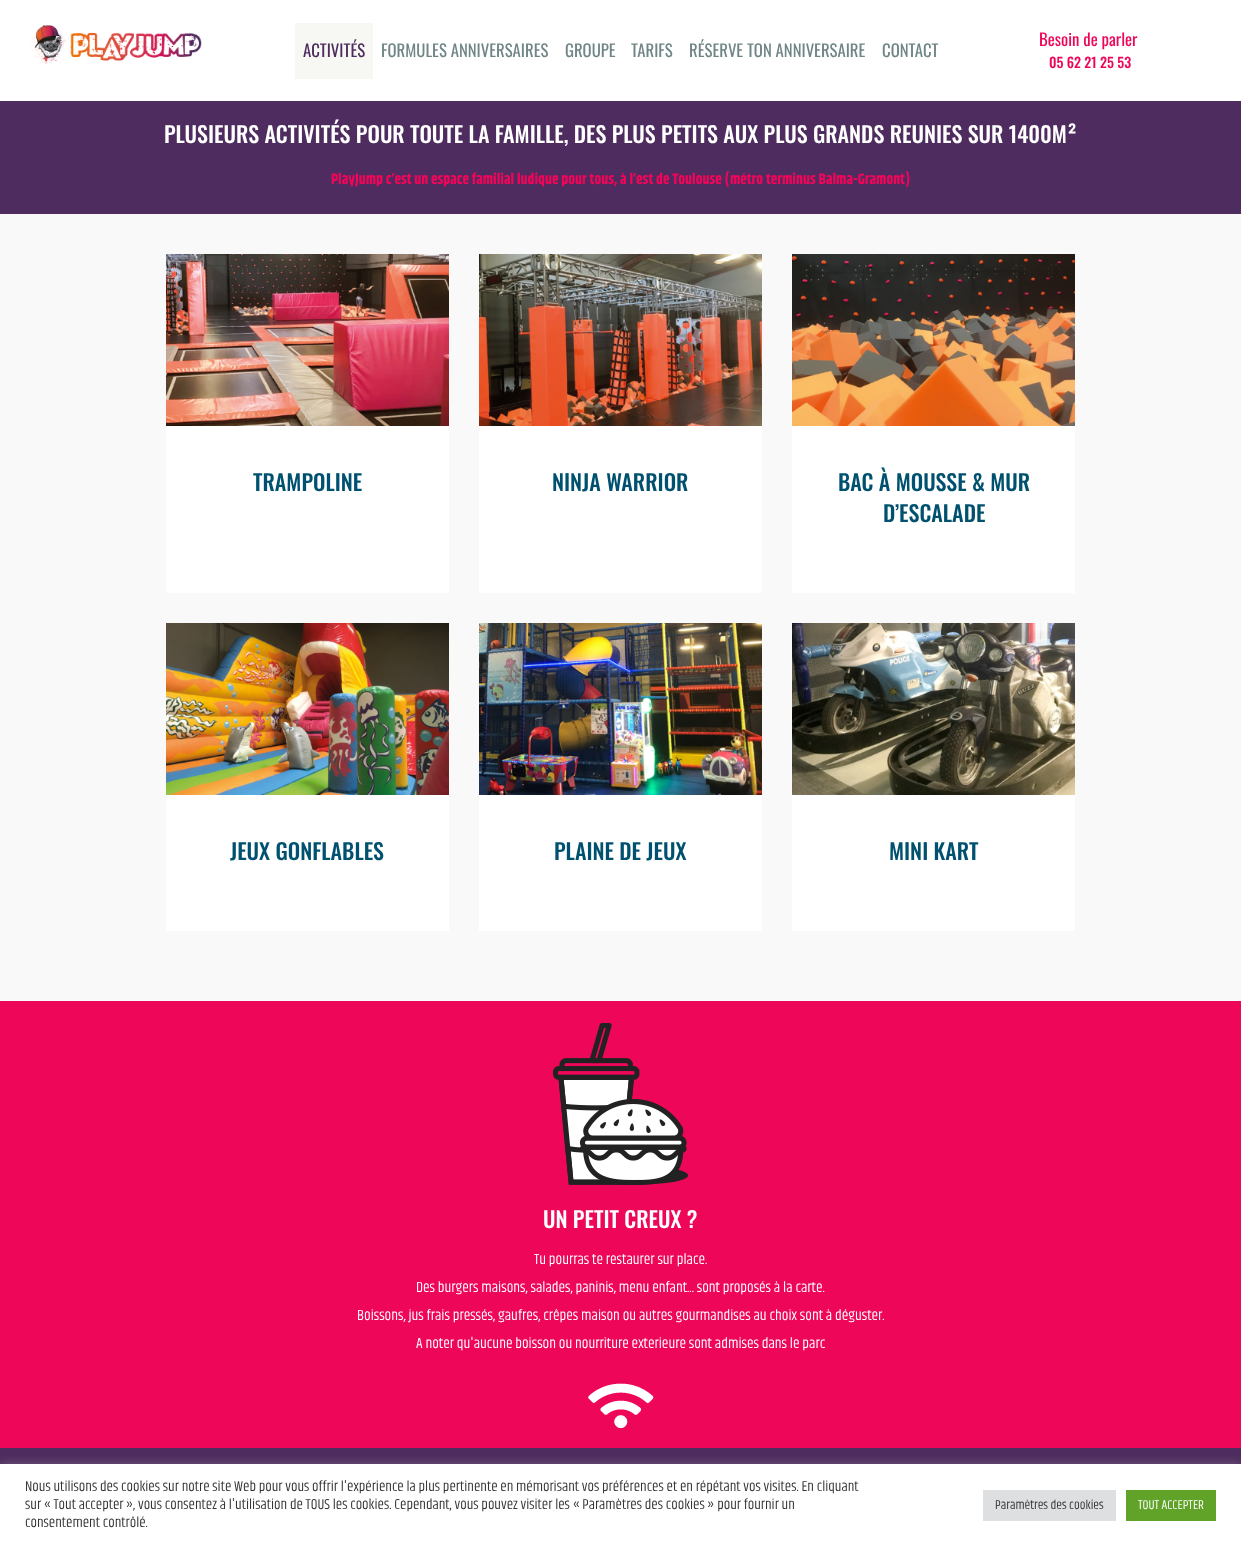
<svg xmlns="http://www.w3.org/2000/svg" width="1241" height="1546">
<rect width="100%" height="100%" fill="#fff"/>
<image x="30" y="25" width="172" height="39" href="media/1.png"/>
<rect x="295" y="23" width="78" height="56" fill="#f7f7f3"/>
<text x="303" y="57" style="font-family:Oswald;font-size:16.75px;fill:#4e2c5f">ACTIVITÉS</text>
<text x="381" y="57" style="font-family:Oswald;font-size:16.75px;fill:#708586">FORMULES ANNIVERSAIRES</text>
<text x="565" y="57" style="font-family:Oswald;font-size:16.75px;fill:#708586">GROUPE</text>
<text x="631" y="57" style="font-family:Oswald;font-size:16.75px;fill:#708586">TARIFS</text>
<text x="689" y="57" style="font-family:Oswald;font-size:16.75px;fill:#708586">RÉSERVE TON ANNIVERSAIRE</text>
<text x="882" y="57" style="font-family:Oswald;font-size:16.75px;fill:#708586">CONTACT</text>
<text x="1039" y="46" style="font-family:Oswald;font-size:16.75px;fill:#ee0659">Besoin de parler</text>
<text x="1049" y="68" style="font-family:Oswald;font-size:14px;font-weight:500;fill:#ee0659">05 62 21 25 53</text>
<rect y="101" width="1241" height="113" fill="#4e2c5f"/>
<text x="164" y="143" style="font-family:Oswald;font-size:22.05px;font-weight:500;fill:#fff">PLUSIEURS ACTIVITÉS POUR TOUTE LA FAMILLE, DES PLUS PETITS AUX PLUS GRANDS REUNIES SUR 1400M²</text>
<text x="331" y="184" style="font-family:Khand;font-size:15px;font-weight:bold;fill:#ee0659">PlayJump c’est un espace familial ludique pour tous, à l’est de Toulouse (métro terminus Balma-Gramont)</text>
<rect y="214" width="1241" height="787" fill="#f9f9f9"/>
<rect x="166" y="426" width="283" height="167" fill="#fff"/>
<image x="166" y="254" width="283" height="172" href="media/2.png"/>
<text x="253" y="491" style="font-family:Oswald;font-size:22.05px;font-weight:500;fill:#00516f">TRAMPOLINE</text>
<rect x="479" y="426" width="283" height="167" fill="#fff"/>
<image x="479" y="254" width="283" height="172" href="media/3.png"/>
<text x="552" y="491" style="font-family:Oswald;font-size:22.05px;font-weight:500;fill:#00516f">NINJA WARRIOR</text>
<rect x="792" y="426" width="283" height="167" fill="#fff"/>
<image x="792" y="254" width="283" height="172" href="media/4.png"/>
<text x="838" y="491" style="font-family:Oswald;font-size:22.05px;font-weight:500;fill:#00516f">BAC À MOUSSE &amp; MUR</text>
<text x="883" y="522" style="font-family:Oswald;font-size:22.05px;font-weight:500;fill:#00516f">D’ESCALADE</text>
<rect x="166" y="795" width="283" height="136" fill="#fff"/>
<image x="166" y="623" width="283" height="172" href="media/5.png"/>
<text x="230" y="860" style="font-family:Oswald;font-size:22.05px;font-weight:500;fill:#00516f">JEUX GONFLABLES</text>
<rect x="479" y="795" width="283" height="136" fill="#fff"/>
<image x="479" y="623" width="283" height="172" href="media/6.png"/>
<text x="554" y="860" style="font-family:Oswald;font-size:22.05px;font-weight:500;fill:#00516f">PLAINE DE JEUX</text>
<rect x="792" y="795" width="283" height="136" fill="#fff"/>
<image x="792" y="623" width="283" height="172" href="media/7.png"/>
<text x="889" y="860" style="font-family:Oswald;font-size:22.05px;font-weight:500;fill:#00516f">MINI KART</text>
<rect y="1001" width="1241" height="447" fill="#ee0659"/>
<image x="553" y="1023" width="135" height="162" href="media/8.png"/>
<text x="543" y="1228" style="font-family:Oswald;font-size:22.05px;font-weight:500;fill:#fff">UN PETIT CREUX ?</text>
<text x="534" y="1264" style="font-family:Khand;font-size:15px;fill:#fff">Tu pourras te restaurer sur place.</text>
<text x="416" y="1292" style="font-family:Khand;font-size:15px;fill:#fff">Des burgers maisons, salades, paninis, menu enfant... sont proposés à la carte.</text>
<text x="357" y="1320" style="font-family:Khand;font-size:15px;fill:#fff">Boissons, jus frais pressés, gaufres, crêpes maison ou autres gourmandises au choix sont à déguster.</text>
<text x="416" y="1348" style="font-family:Khand;font-size:15px;fill:#fff">A noter qu'aucune boisson ou nourriture exterieure sont admises dans le parc</text>
<image x="588" y="1383" width="66" height="45" href="media/9.png"/>
<rect y="1448" width="1241" height="16" fill="#4e2c5f"/>
<rect y="1463" width="1241" height="82" fill="#acabab4d" filter="blur(5px)"/>
<rect y="1464" width="1241" height="82" fill="#fff"/>
<text x="25" y="1491" style="font-family:Khand;font-size:14.67px;fill:#333">Nous utilisons des cookies sur notre site Web pour vous offrir l'expérience la plus pertinente en mémorisant vos préférences et en répétant vos visites. En cliquant</text>
<text x="25" y="1509" style="font-family:Khand;font-size:14.67px;fill:#333">sur « Tout accepter », vous consentez à l'utilisation de TOUS les cookies. Cependant, vous pouvez visiter les « Paramètres des cookies » pour fournir un</text>
<text x="25" y="1527" style="font-family:Khand;font-size:14.67px;fill:#333">consentement contrôlé.</text>
<rect x="983" y="1490" width="133" height="31" fill="#dedfe0"/>
<text x="995" y="1509" style="font-family:Khand;font-size:13px;fill:#333">Paramètres des cookies</text>
<rect x="1126" y="1490" width="90" height="31" fill="#61a229"/>
<text x="1138" y="1509" style="font-family:Khand;font-size:13px;fill:#fff">TOUT ACCEPTER</text>
</svg>
